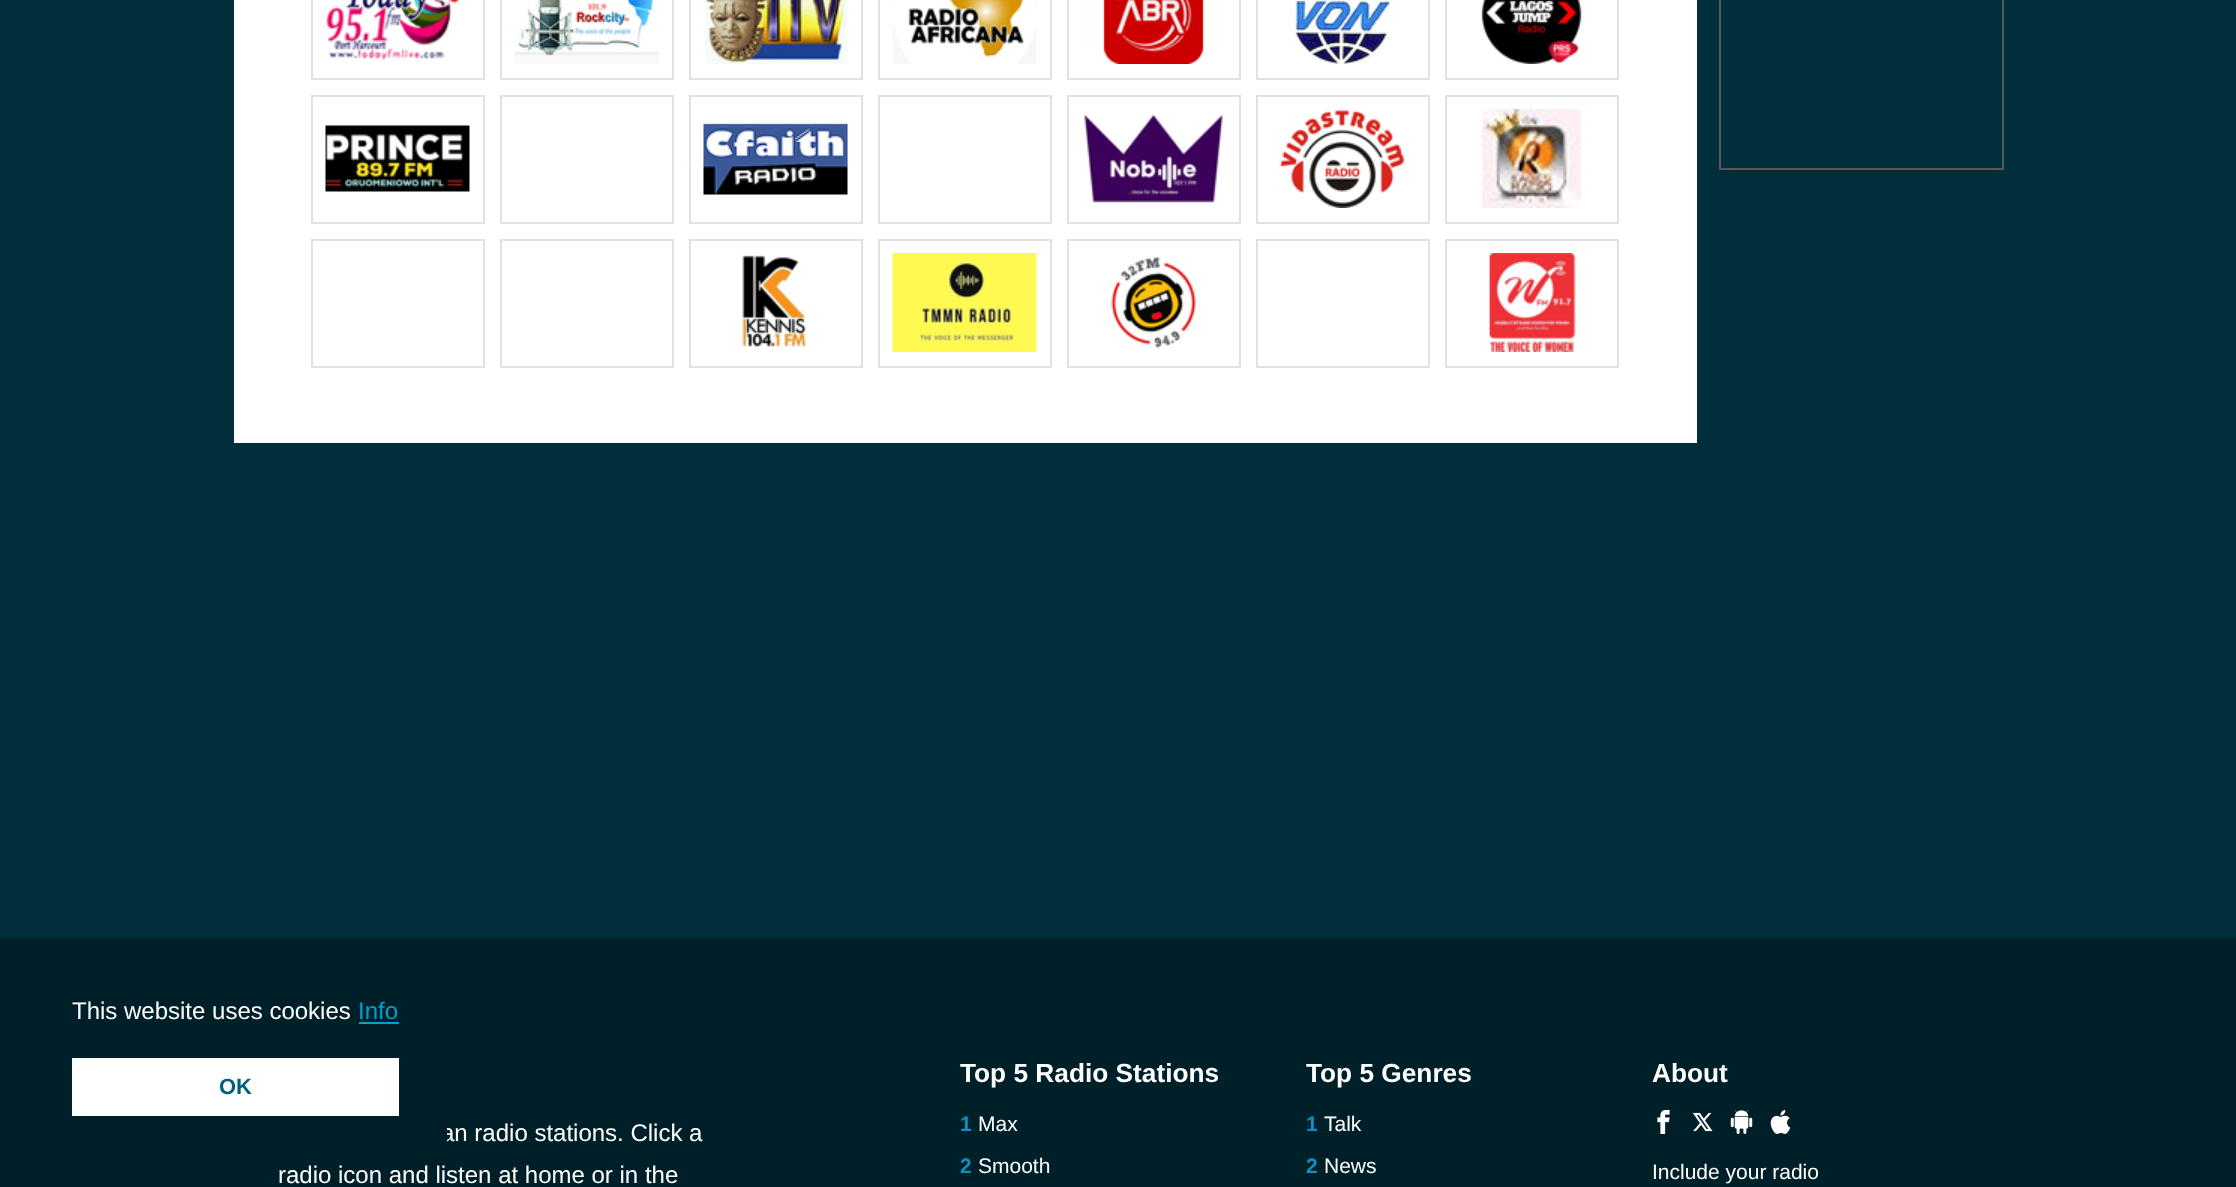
<svg xmlns="http://www.w3.org/2000/svg" width="2236" height="1187">
<rect width="100%" height="100%" fill="#002e3b"/>
<rect y="938" width="2236" height="249" fill="#002029"/>
<text x="441" y="1141" style="font-family:Liberation Sans;font-size:24px;fill:#fff">an radio stations. Click a</text>
<rect x="442" y="1128" width="5" height="14" fill="#002029"/>
<text x="72" y="1019" style="font-family:Liberation Sans;font-size:24px;fill:#fff">This website uses cookies</text>
<text x="358" y="1019" style="font-family:Liberation Sans;font-size:24px;fill:#00a0ce">Info</text>
<rect x="359" y="1022" width="40" height="2" fill="#00a0ce"/>
<rect x="72" y="1058" width="327" height="58" fill="#fff"/>
<text x="219" y="1094" style="font-family:Liberation Sans;font-size:22px;font-weight:bold;fill:#005f79">OK</text>
<rect x="234" width="1463" height="443" fill="#fff"/>
<rect x="312" y="-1" width="172" height="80" fill="none" stroke="#e1e1e1" stroke-width="2"/>
<image x="325" y="0" width="135" height="61" href="media/1.png"/>
<rect x="501" y="-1" width="172" height="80" fill="none" stroke="#e1e1e1" stroke-width="2"/>
<image x="514" y="0" width="145" height="64" href="media/2.png"/>
<rect x="690" y="-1" width="172" height="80" fill="none" stroke="#e1e1e1" stroke-width="2"/>
<image x="705" y="0" width="143" height="64" href="media/3.png"/>
<rect x="879" y="-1" width="172" height="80" fill="none" stroke="#e1e1e1" stroke-width="2"/>
<image x="892" y="0" width="145" height="64" href="media/4.png"/>
<rect x="1068" y="-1" width="172" height="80" fill="none" stroke="#e1e1e1" stroke-width="2"/>
<image x="1103" y="0" width="101" height="64" href="media/5.png"/>
<rect x="1257" y="-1" width="172" height="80" fill="none" stroke="#e1e1e1" stroke-width="2"/>
<image x="1290" y="0" width="100" height="64" href="media/6.png"/>
<rect x="1446" y="-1" width="172" height="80" fill="none" stroke="#e1e1e1" stroke-width="2"/>
<image x="1481" y="0" width="101" height="64" href="media/7.png"/>
<rect x="312" y="96" width="172" height="127" fill="none" stroke="#e1e1e1" stroke-width="2"/>
<image x="325" y="125" width="145" height="67" href="media/8.png"/>
<rect x="501" y="96" width="172" height="127" fill="none" stroke="#e1e1e1" stroke-width="2"/>
<rect x="690" y="96" width="172" height="127" fill="none" stroke="#e1e1e1" stroke-width="2"/>
<image x="703" y="123" width="145" height="72" href="media/9.png"/>
<rect x="879" y="96" width="172" height="127" fill="none" stroke="#e1e1e1" stroke-width="2"/>
<rect x="1068" y="96" width="172" height="127" fill="none" stroke="#e1e1e1" stroke-width="2"/>
<image x="1084" y="114" width="139" height="89" href="media/10.png"/>
<rect x="1257" y="96" width="172" height="127" fill="none" stroke="#e1e1e1" stroke-width="2"/>
<image x="1279" y="110" width="126" height="98" href="media/11.png"/>
<rect x="1446" y="96" width="172" height="127" fill="none" stroke="#e1e1e1" stroke-width="2"/>
<image x="1482" y="109" width="99" height="99" href="media/12.png"/>
<rect x="312" y="240" width="172" height="127" fill="none" stroke="#e1e1e1" stroke-width="2"/>
<rect x="501" y="240" width="172" height="127" fill="none" stroke="#e1e1e1" stroke-width="2"/>
<rect x="690" y="240" width="172" height="127" fill="none" stroke="#e1e1e1" stroke-width="2"/>
<image x="742" y="255" width="65" height="93" href="media/13.png"/>
<rect x="879" y="240" width="172" height="127" fill="none" stroke="#e1e1e1" stroke-width="2"/>
<image x="892" y="253" width="145" height="99" href="media/14.png"/>
<rect x="1068" y="240" width="172" height="127" fill="none" stroke="#e1e1e1" stroke-width="2"/>
<image x="1111" y="257" width="85" height="91" href="media/15.png"/>
<rect x="1257" y="240" width="172" height="127" fill="none" stroke="#e1e1e1" stroke-width="2"/>
<rect x="1446" y="240" width="172" height="127" fill="none" stroke="#e1e1e1" stroke-width="2"/>
<image x="1489" y="253" width="87" height="99" href="media/16.png"/>
<rect x="1720" y="-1" width="283" height="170" fill="none" stroke="#585858" stroke-width="2"/>
<text x="278" y="1183" style="font-family:Liberation Sans;font-size:24px;fill:#fff">radio icon and listen at home or in the</text>
<text x="960" y="1082" style="font-family:Liberation Sans;font-size:26.25px;font-weight:bold;fill:#fff">Top 5 Radio Stations</text>
<text x="960" y="1131" style="font-family:Liberation Sans;font-size:21px;font-weight:bold;fill:#128fc2">1</text>
<text x="978" y="1131" style="font-family:Liberation Sans;font-size:21px;fill:#fff">Max</text>
<text x="960" y="1173" style="font-family:Liberation Sans;font-size:21px;font-weight:bold;fill:#128fc2">2</text>
<text x="978" y="1173" style="font-family:Liberation Sans;font-size:21px;fill:#fff">Smooth</text>
<text x="1306" y="1082" style="font-family:Liberation Sans;font-size:26.25px;font-weight:bold;fill:#fff">Top 5 Genres</text>
<text x="1306" y="1131" style="font-family:Liberation Sans;font-size:21px;font-weight:bold;fill:#128fc2">1</text>
<text x="1324" y="1131" style="font-family:Liberation Sans;font-size:21px;fill:#fff">Talk</text>
<text x="1306" y="1173" style="font-family:Liberation Sans;font-size:21px;font-weight:bold;fill:#128fc2">2</text>
<text x="1324" y="1173" style="font-family:Liberation Sans;font-size:21px;fill:#fff">News</text>
<text x="1652" y="1082" style="font-family:Liberation Sans;font-size:26.25px;font-weight:bold;fill:#fff">About</text>
<image x="1657" y="1110" width="13" height="24" href="media/17.png"/>
<image x="1692" y="1112" width="21" height="20" href="media/18.png"/>
<image x="1730" y="1110" width="23" height="24" href="media/19.png"/>
<image x="1770" y="1110" width="21" height="24" href="media/20.png"/>
<text x="1652" y="1179" style="font-family:Liberation Sans;font-size:21px;fill:#fff">Include your radio</text>
</svg>
